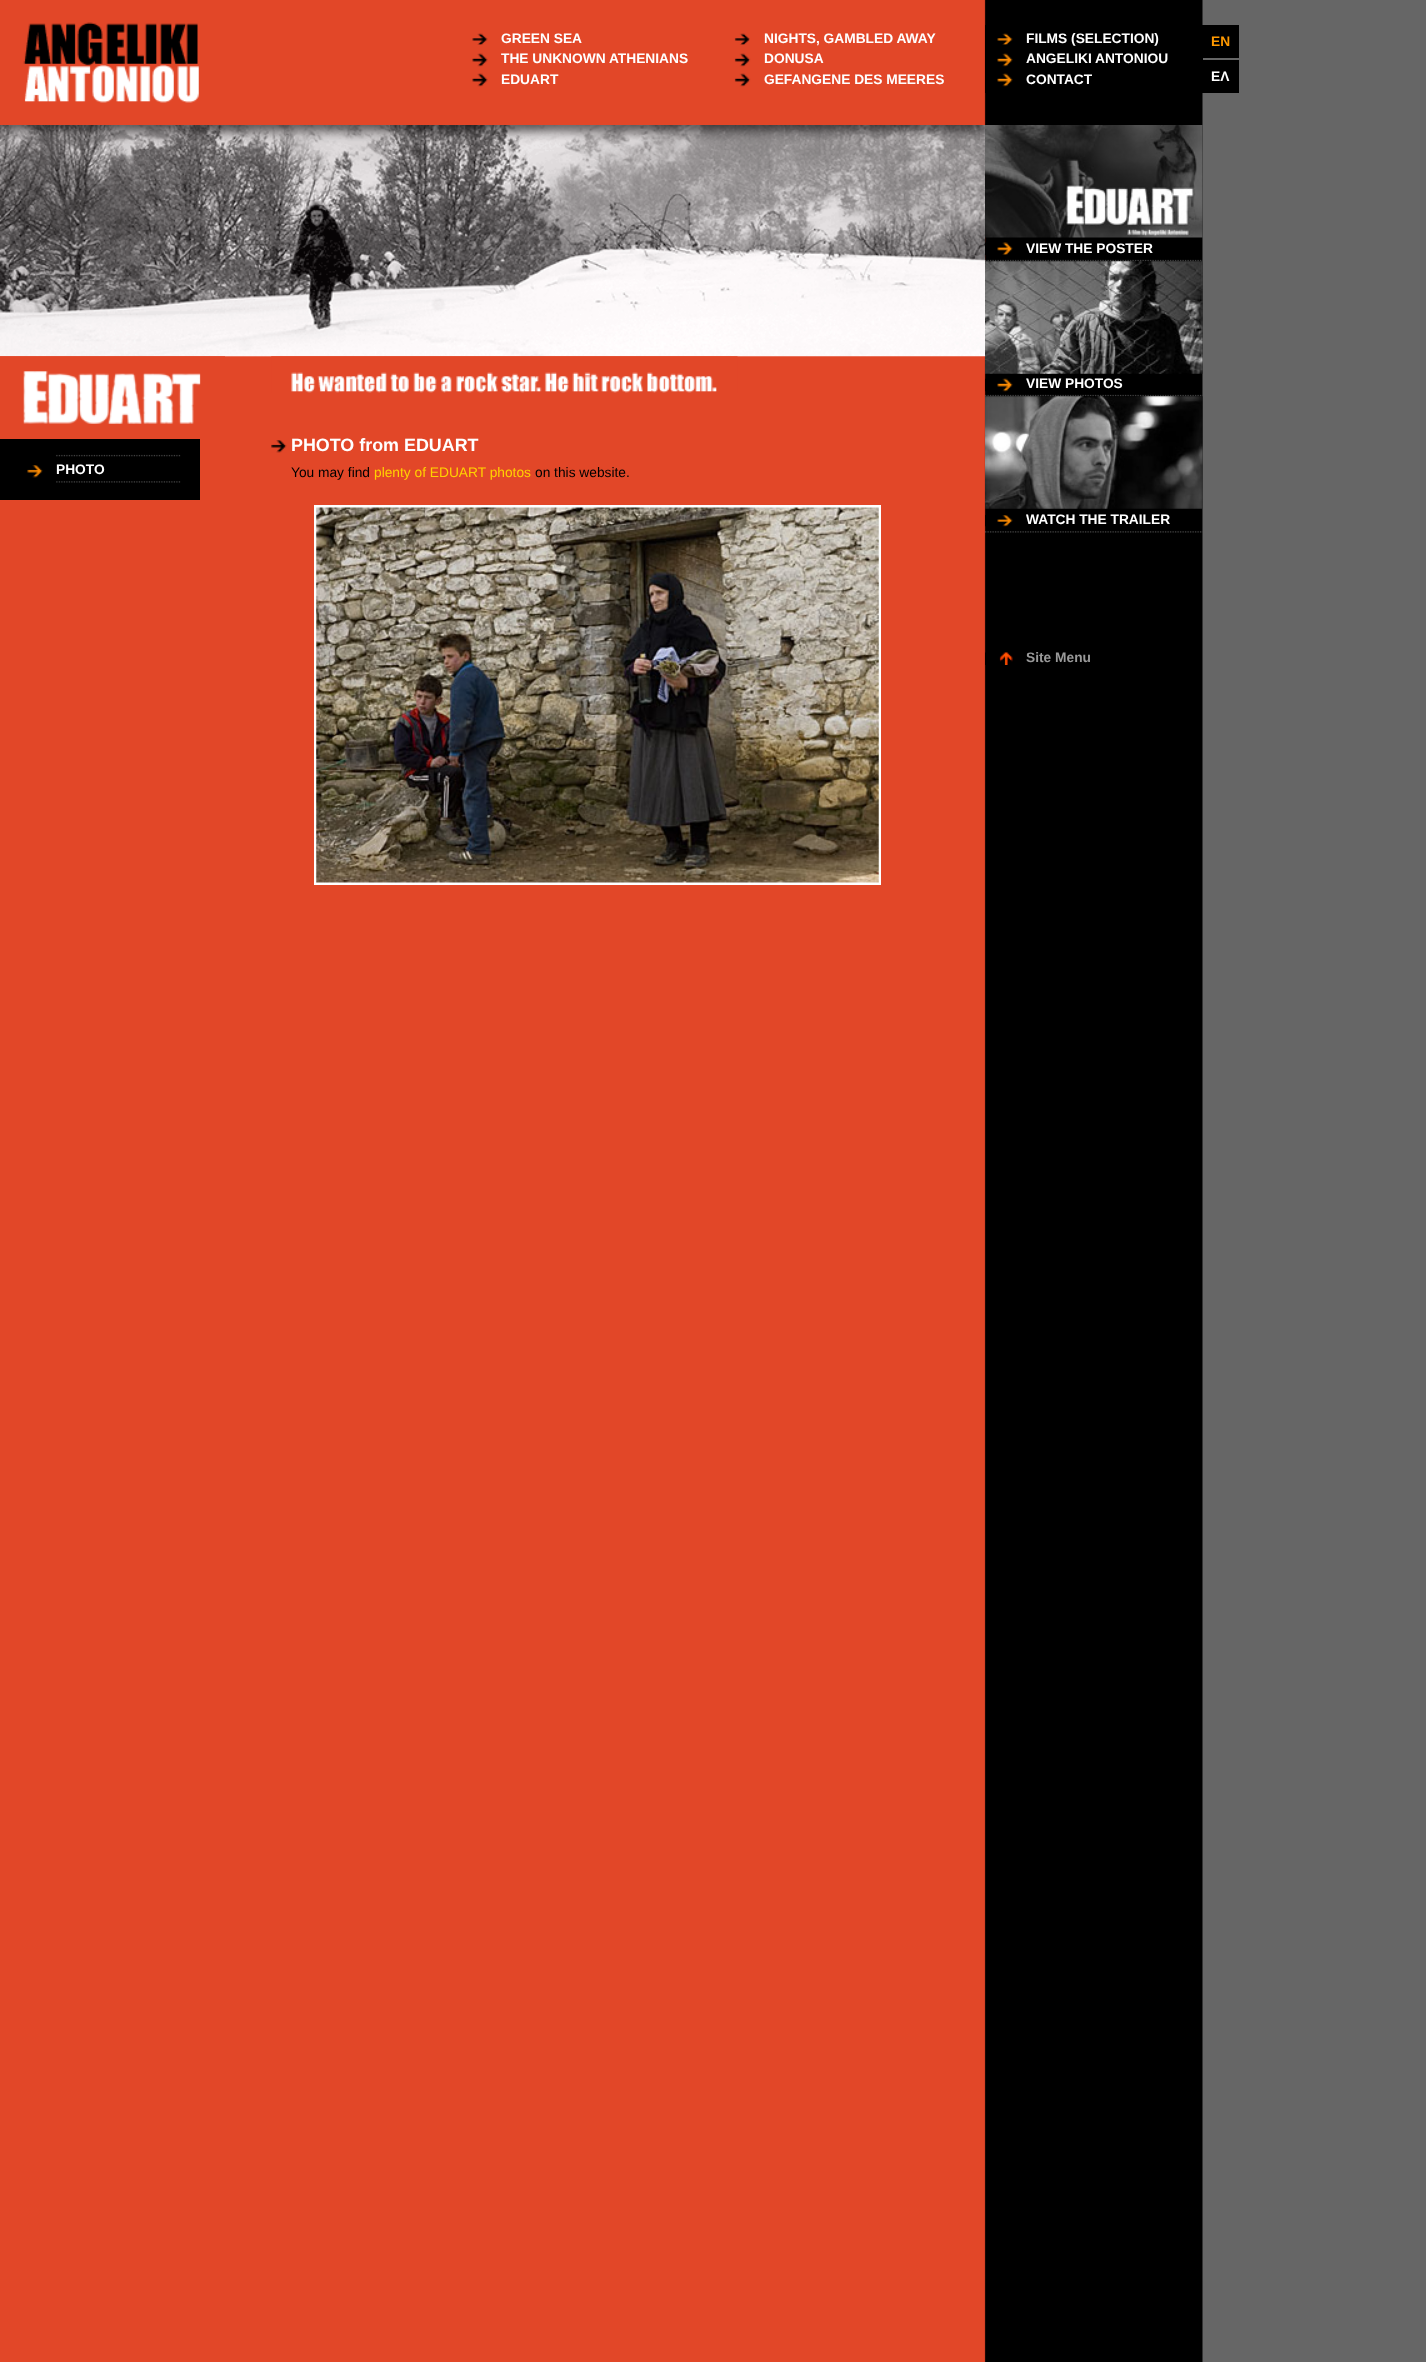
<svg xmlns="http://www.w3.org/2000/svg" width="1426" height="2362">
<rect width="100%" height="100%" fill="#666"/>
<image x="0" y="0" width="1203" height="2362" href="media/1.png"/>
<image x="23" y="22" width="176" height="81" href="media/2.png"/>
<image x="472" y="33" width="16" height="12" href="media/3.png"/>
<text x="501" y="43" style="font-family:Liberation Sans;font-size:13.75px;font-weight:bold;fill:#fff">GREEN SEA</text>
<image x="472" y="53" width="16" height="14" href="media/4.png"/>
<text x="501" y="63" style="font-family:Liberation Sans;font-size:13.75px;font-weight:bold;fill:#fff">THE UNKNOWN ATHENIANS</text>
<image x="472" y="73" width="16" height="14" href="media/4.png"/>
<text x="501" y="84" style="font-family:Liberation Sans;font-size:13.75px;font-weight:bold;fill:#fff">EDUART</text>
<image x="734" y="33" width="16" height="12" href="media/5.png"/>
<text x="764" y="43" style="font-family:Liberation Sans;font-size:13.75px;font-weight:bold;fill:#fff">NIGHTS, GAMBLED AWAY</text>
<image x="734" y="53" width="17" height="14" href="media/6.png"/>
<text x="764" y="63" style="font-family:Liberation Sans;font-size:13.75px;font-weight:bold;fill:#fff">DONUSA</text>
<image x="734" y="73" width="17" height="14" href="media/6.png"/>
<text x="764" y="84" style="font-family:Liberation Sans;font-size:13.75px;font-weight:bold;fill:#fff">GEFANGENE DES MEERES</text>
<rect x="985" y="25" width="218" height="68" fill="#000"/>
<image x="997" y="33" width="16" height="12" href="media/7.png"/>
<text x="1026" y="43" style="font-family:Liberation Sans;font-size:13.75px;font-weight:bold;fill:#fff">FILMS (SELECTION)</text>
<image x="997" y="53" width="16" height="14" href="media/8.png"/>
<text x="1026" y="63" style="font-family:Liberation Sans;font-size:13.75px;font-weight:bold;fill:#fff">ANGELIKI ANTONIOU</text>
<image x="997" y="73" width="16" height="14" href="media/8.png"/>
<text x="1026" y="84" style="font-family:Liberation Sans;font-size:13.75px;font-weight:bold;fill:#fff">CONTACT</text>
<rect x="1203" y="25" width="36" height="33" fill="#000"/>
<text x="1211" y="46" style="font-family:Liberation Sans;font-size:13.75px;font-weight:bold;fill:#f90">EN</text>
<rect x="1203" y="60" width="36" height="33" fill="#000"/>
<text x="1211" y="81" style="font-family:Liberation Sans;font-size:13.75px;font-weight:bold;fill:#fff">ΕΛ</text>
<image x="985" y="259" width="218" height="3" href="media/9.png"/>
<image x="985" y="125" width="218" height="113" href="media/10.png"/>
<image x="985" y="242" width="28" height="13" href="media/11.png"/>
<text x="1026" y="253" style="font-family:Liberation Sans;font-size:13.75px;font-weight:bold;fill:#fff">VIEW THE POSTER</text>
<image x="985" y="394" width="218" height="3" href="media/9.png"/>
<image x="985" y="261" width="218" height="113" href="media/12.png"/>
<image x="985" y="378" width="28" height="14" href="media/13.png"/>
<text x="1026" y="388" style="font-family:Liberation Sans;font-size:13.75px;font-weight:bold;fill:#fff">VIEW PHOTOS</text>
<image x="985" y="531" width="218" height="2" href="media/14.png"/>
<image x="985" y="396" width="218" height="113" href="media/15.png"/>
<image x="985" y="515" width="28" height="12" href="media/16.png"/>
<text x="1026" y="524" style="font-family:Liberation Sans;font-size:13.75px;font-weight:bold;fill:#fff">WATCH THE TRAILER</text>
<image x="0" y="125" width="985" height="232" href="media/17.png"/>
<image x="0" y="356" width="225" height="68" href="media/18.png"/>
<rect y="439" width="200" height="61" fill="#000"/>
<image x="56" y="454" width="125" height="3" href="media/19.png"/>
<image x="56" y="481" width="125" height="2" href="media/20.png"/>
<image x="27" y="465" width="16" height="13" href="media/21.png"/>
<text x="56" y="474" style="font-family:Liberation Sans;font-size:13.75px;font-weight:bold;fill:#fff">PHOTO</text>
<image x="271" y="356" width="467" height="37" href="media/22.png"/>
<image x="271" y="440" width="16" height="13" href="media/23.png"/>
<text x="291" y="451" style="font-family:Liberation Sans;font-size:17.9px;font-weight:bold;fill:#fff">PHOTO from EDUART</text>
<text x="291" y="477" style="font-family:Liberation Sans;font-size:13.75px;fill:#000">You may find</text>
<text x="374" y="477" style="font-family:Liberation Sans;font-size:13.75px;fill:#ffd200">plenty of EDUART photos</text>
<text x="535" y="477" style="font-family:Liberation Sans;font-size:13.75px;fill:#000">on this website.</text>
<rect x="315.5" y="506.5" width="564" height="377" fill="none" stroke="#fff" stroke-width="3"/>
<image x="316" y="507" width="563" height="376" href="media/24.png"/>
<image x="985" y="652" width="28" height="13" href="media/25.png"/>
<text x="1026" y="662" style="font-family:Liberation Sans;font-size:13.75px;font-weight:bold;fill:#999">Site Menu</text>
</svg>
